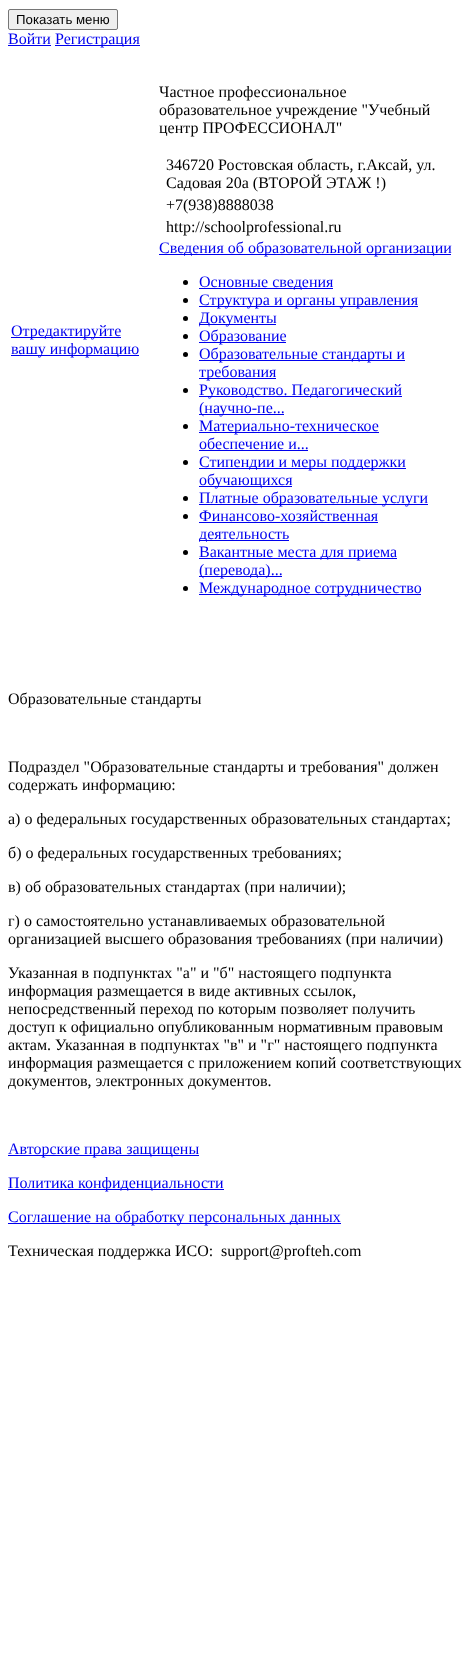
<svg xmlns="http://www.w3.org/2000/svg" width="472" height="1668">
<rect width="100%" height="100%" fill="#fff"/>
<rect x="8.5" y="9.5" width="109" height="20" rx="1.5" fill="#efefef" stroke="#767676"/>
<text x="16" y="24" style="font-family:Liberation Sans;font-size:13.25px;fill:#000">Показать меню</text>
<text x="8" y="44" style="font-family:Liberation Serif;font-size:16px;fill:#00e">Войти</text>
<rect x="8" y="45" width="43" height="1" fill="#00e"/>
<rect x="55" y="45" width="85" height="1" fill="#00e"/>
<text x="55" y="44" style="font-family:Liberation Serif;font-size:16px;fill:#00e">Регистрация</text>
<rect x="11" y="337" width="110" height="1" fill="#00e"/>
<text x="11" y="336" style="font-family:Liberation Serif;font-size:16px;fill:#00e">Отредактируйте</text>
<rect x="11" y="355" width="128" height="1" fill="#00e"/>
<text x="11" y="354" style="font-family:Liberation Serif;font-size:16px;fill:#00e">вашу информацию</text>
<text x="159" y="97" style="font-family:Liberation Serif;font-size:16px;fill:#000">Частное профессиональное</text>
<text x="159" y="115" style="font-family:Liberation Serif;font-size:16px;fill:#000">образовательное учреждение "Учебный</text>
<text x="159" y="133" style="font-family:Liberation Serif;font-size:16px;fill:#000">центр ПРОФЕССИОНАЛ"</text>
<text x="166" y="170" style="font-family:Liberation Serif;font-size:16px;fill:#000">346720 Ростовская область, г.Аксай, ул.</text>
<text x="166" y="188" style="font-family:Liberation Serif;font-size:16px;fill:#000">Садовая 20а (ВТОРОЙ ЭТАЖ !)</text>
<text x="166" y="210" style="font-family:Liberation Serif;font-size:16px;fill:#000">+7(938)8888038</text>
<text x="166" y="232" style="font-family:Liberation Serif;font-size:16px;fill:#000">http://schoolprofessional.ru</text>
<rect x="159" y="254" width="292" height="1" fill="#00e"/>
<text x="159" y="253" style="font-family:Liberation Serif;font-size:16px;fill:#00e">Сведения об образовательной организации</text>
<circle cx="185.5" cy="282.5" r="2.5" fill="#000"/>
<rect x="199" y="288" width="134" height="1" fill="#00e"/>
<text x="199" y="287" style="font-family:Liberation Serif;font-size:16px;fill:#00e">Основные сведения</text>
<circle cx="185.5" cy="300.5" r="2.5" fill="#000"/>
<rect x="199" y="306" width="219" height="1" fill="#00e"/>
<text x="199" y="305" style="font-family:Liberation Serif;font-size:16px;fill:#00e">Структура и органы управления</text>
<circle cx="185.5" cy="318.5" r="2.5" fill="#000"/>
<rect x="199" y="324" width="77" height="1" fill="#00e"/>
<text x="199" y="323" style="font-family:Liberation Serif;font-size:16px;fill:#00e">Документы</text>
<circle cx="185.5" cy="336.5" r="2.5" fill="#000"/>
<rect x="199" y="342" width="87" height="1" fill="#00e"/>
<text x="199" y="341" style="font-family:Liberation Serif;font-size:16px;fill:#00e">Образование</text>
<circle cx="185.5" cy="354.5" r="2.5" fill="#000"/>
<rect x="199" y="360" width="206" height="1" fill="#00e"/>
<text x="199" y="359" style="font-family:Liberation Serif;font-size:16px;fill:#00e">Образовательные стандарты и</text>
<rect x="199" y="378" width="77" height="1" fill="#00e"/>
<text x="199" y="377" style="font-family:Liberation Serif;font-size:16px;fill:#00e">требования</text>
<circle cx="185.5" cy="390.5" r="2.5" fill="#000"/>
<rect x="199" y="396" width="203" height="1" fill="#00e"/>
<text x="199" y="395" style="font-family:Liberation Serif;font-size:16px;fill:#00e">Руководство. Педагогический</text>
<rect x="199" y="414" width="85" height="1" fill="#00e"/>
<text x="199" y="413" style="font-family:Liberation Serif;font-size:16px;fill:#00e">(научно-пе...</text>
<circle cx="185.5" cy="426.5" r="2.5" fill="#000"/>
<rect x="199" y="432" width="180" height="1" fill="#00e"/>
<text x="199" y="431" style="font-family:Liberation Serif;font-size:16px;fill:#00e">Материально-техническое</text>
<text x="199" y="449" style="font-family:Liberation Serif;font-size:16px;fill:#00e">обеспечение и...</text>
<rect x="199" y="450" width="109" height="1" fill="#00e"/>
<circle cx="185.5" cy="462.5" r="2.5" fill="#000"/>
<rect x="199" y="468" width="207" height="1" fill="#00e"/>
<text x="199" y="467" style="font-family:Liberation Serif;font-size:16px;fill:#00e">Стипендии и меры поддержки</text>
<rect x="199" y="486" width="93" height="1" fill="#00e"/>
<text x="199" y="485" style="font-family:Liberation Serif;font-size:16px;fill:#00e">обучающихся</text>
<circle cx="185.5" cy="498.5" r="2.5" fill="#000"/>
<rect x="199" y="504" width="229" height="1" fill="#00e"/>
<text x="199" y="503" style="font-family:Liberation Serif;font-size:16px;fill:#00e">Платные образовательные услуги</text>
<circle cx="185.5" cy="516.5" r="2.5" fill="#000"/>
<text x="199" y="521" style="font-family:Liberation Serif;font-size:16px;fill:#00e">Финансово-хозяйственная</text>
<rect x="199" y="522" width="179" height="1" fill="#00e"/>
<rect x="199" y="540" width="90" height="1" fill="#00e"/>
<text x="199" y="539" style="font-family:Liberation Serif;font-size:16px;fill:#00e">деятельность</text>
<circle cx="185.5" cy="552.5" r="2.5" fill="#000"/>
<rect x="199" y="558" width="198" height="1" fill="#00e"/>
<text x="199" y="557" style="font-family:Liberation Serif;font-size:16px;fill:#00e">Вакантные места для приема</text>
<rect x="199" y="576" width="83" height="1" fill="#00e"/>
<text x="199" y="575" style="font-family:Liberation Serif;font-size:16px;fill:#00e">(перевода)...</text>
<circle cx="185.5" cy="588.5" r="2.5" fill="#000"/>
<rect x="199" y="594" width="222" height="1" fill="#00e"/>
<text x="199" y="593" style="font-family:Liberation Serif;font-size:16px;fill:#00e">Международное сотрудничество</text>
<text x="8" y="704" style="font-family:Liberation Serif;font-size:16px;fill:#000">Образовательные стандарты</text>
<text x="8" y="772" style="font-family:Liberation Serif;font-size:16px;fill:#000">Подраздел "Образовательные стандарты и требования" должен</text>
<text x="8" y="790" style="font-family:Liberation Serif;font-size:16px;fill:#000">содержать информацию:</text>
<text x="8" y="824" style="font-family:Liberation Serif;font-size:16px;fill:#000">а) о федеральных государственных образовательных стандартах;</text>
<text x="8" y="858" style="font-family:Liberation Serif;font-size:16px;fill:#000">б) о федеральных государственных требованиях;</text>
<text x="8" y="892" style="font-family:Liberation Serif;font-size:16px;fill:#000">в) об образовательных стандартах (при наличии);</text>
<text x="8" y="926" style="font-family:Liberation Serif;font-size:16px;fill:#000">г) о самостоятельно устанавливаемых образовательной</text>
<text x="8" y="944" style="font-family:Liberation Serif;font-size:16px;fill:#000">организацией высшего образования требованиях (при наличии)</text>
<text x="8" y="978" style="font-family:Liberation Serif;font-size:16px;fill:#000">Указанная в подпунктах "а" и "б" настоящего подпункта</text>
<text x="8" y="996" style="font-family:Liberation Serif;font-size:16px;fill:#000">информация размещается в виде активных ссылок,</text>
<text x="8" y="1014" style="font-family:Liberation Serif;font-size:16px;fill:#000">непосредственный переход по которым позволяет получить</text>
<text x="8" y="1032" style="font-family:Liberation Serif;font-size:16px;fill:#000">доступ к официально опубликованным нормативным правовым</text>
<text x="8" y="1050" style="font-family:Liberation Serif;font-size:16px;fill:#000">актам. Указанная в подпунктах "в" и "г" настоящего подпункта</text>
<text x="8" y="1068" style="font-family:Liberation Serif;font-size:16px;fill:#000">информация размещается с приложением копий соответствующих</text>
<text x="8" y="1086" style="font-family:Liberation Serif;font-size:16px;fill:#000">документов, электронных документов.</text>
<rect x="8" y="1155" width="191" height="1" fill="#00e"/>
<text x="8" y="1154" style="font-family:Liberation Serif;font-size:16px;fill:#00e">Авторские права защищены</text>
<rect x="8" y="1189" width="216" height="1" fill="#00e"/>
<text x="8" y="1188" style="font-family:Liberation Serif;font-size:16px;fill:#00e">Политика конфиденциальности</text>
<rect x="8" y="1223" width="333" height="1" fill="#00e"/>
<text x="8" y="1222" style="font-family:Liberation Serif;font-size:16px;fill:#00e">Соглашение на обработку персональных данных</text>
<text x="8" y="1256" style="font-family:Liberation Serif;font-size:16px;fill:#000">Техническая поддержка ИСО:</text>
<text x="221" y="1256" style="font-family:Liberation Serif;font-size:16px;fill:#000">support@profteh.com</text>
</svg>
